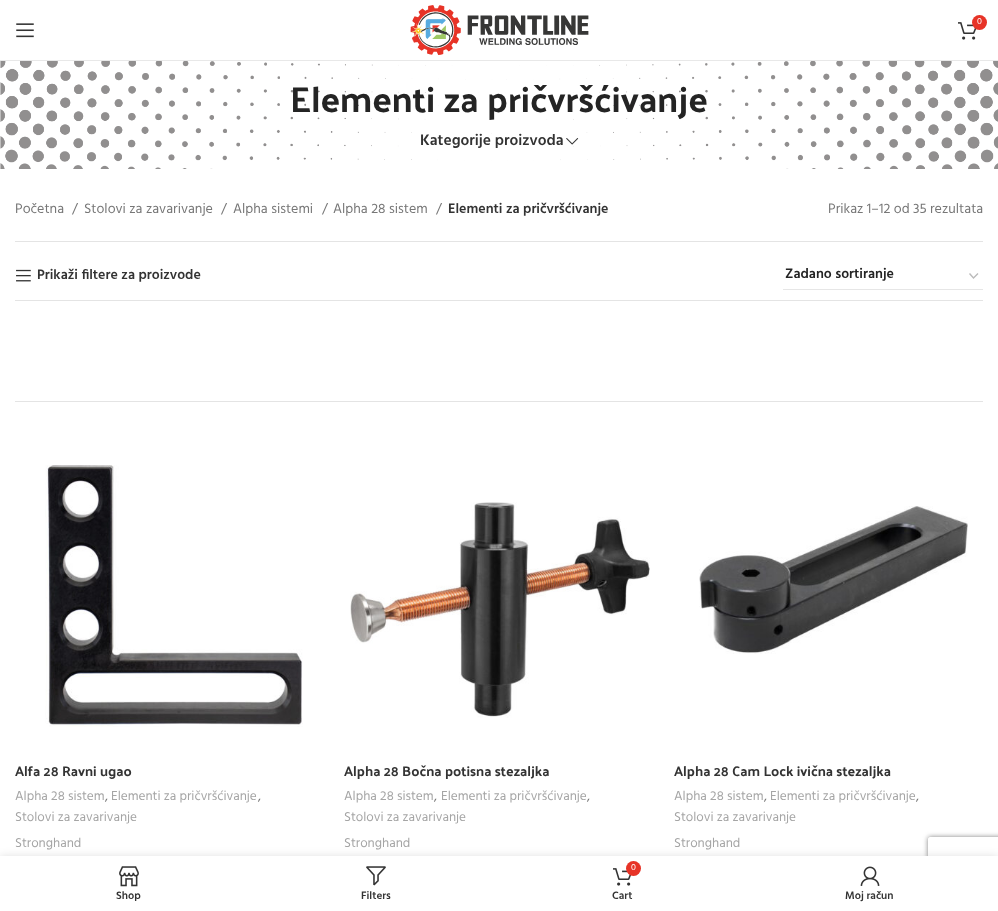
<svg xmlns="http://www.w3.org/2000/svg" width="998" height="911">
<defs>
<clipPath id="clip1"><path d="M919 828h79v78h-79zm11 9h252c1 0 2 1 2 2v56c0 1-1 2-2 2h-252c-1 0-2-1-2-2v-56c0-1 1-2 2-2z" clip-rule="evenodd"/></clipPath>
</defs>
<rect width="100%" height="100%" fill="#fff"/>
<rect y="60" width="998" height="1" fill="#e8e8e8"/>
<image x="410" y="5" width="179" height="50" href="media/1.png"/>
<image x="958" y="22" width="19" height="18" href="media/2.png"/>
<circle cx="979.5" cy="22.5" r="7.5" fill="#e73327"/>
<text x="977" y="24" style="font-family:Hind;font-size:9px;fill:#fff">0</text>
<image x="16" y="23" width="18" height="15" href="media/3.png"/>
<image x="0" y="61" width="998" height="108" href="media/4.png"/>
<text x="290" y="112" style="font-family:Palanquin Dark;font-size:36px;fill:#242424">Elementi za pričvršćivanje</text>
<text x="420" y="145" style="font-family:Hind;font-size:15.5px;font-weight:600;fill:#333">Kategorije proizvoda</text>
<image x="566" y="138" width="13" height="7" href="media/5.png"/>
<rect x="15" y="241" width="968" height="1" fill="#e4e4e4"/>
<text x="15" y="213" style="font-family:Hind;font-size:14px;fill:#777">Početna</text>
<text x="72" y="213" style="font-family:Hind;font-size:14px;fill:#777">/</text>
<text x="84" y="213" style="font-family:Hind;font-size:14px;fill:#777">Stolovi za zavarivanje</text>
<text x="221" y="213" style="font-family:Hind;font-size:14px;fill:#777">/</text>
<text x="233" y="213" style="font-family:Hind;font-size:14px;fill:#777">Alpha sistemi</text>
<text x="322" y="213" style="font-family:Hind;font-size:14px;fill:#777">/</text>
<text x="333" y="213" style="font-family:Hind;font-size:14px;fill:#777">Alpha 28 sistem</text>
<text x="436" y="213" style="font-family:Hind;font-size:14px;fill:#777">/</text>
<text x="448" y="213" style="font-family:Hind;font-size:14px;font-weight:600;fill:#333">Elementi za pričvršćivanje</text>
<text x="828" y="213" style="font-family:Hind;font-size:14px;fill:#777">Prikaz 1–12 od 35 rezultata</text>
<image x="16" y="269" width="15" height="13" href="media/6.png"/>
<text x="37" y="279" style="font-family:Hind;font-size:14px;font-weight:600;fill:#333">Prikaži filtere za proizvode</text>
<path d="M969.5 273.5l4 4.5l4.5-4.5" fill="none" stroke="#bbb" stroke-width="1.4"/>
<rect x="783" y="289" width="200" height="1" fill="#e6e6e6"/>
<text x="785" y="278" style="font-family:Hind;font-size:14px;font-weight:600;fill:#242424">Zadano sortiranje</text>
<rect x="15" y="300" width="968" height="1" fill="#e4e4e4"/>
<rect x="15" y="401" width="968" height="1" fill="#e4e4e4"/>
<image x="45" y="465" width="258" height="262" href="media/7.png"/>
<text x="15" y="776" style="font-family:Palanquin Dark;font-size:14px;fill:#333">Alfa 28 Ravni ugao</text>
<text x="15" y="800" style="font-family:Hind;font-size:13.25px;fill:#a5a5a5">Alpha 28 sistem</text>
<text x="105" y="800" style="font-family:Hind;font-size:13.25px;fill:#777">,</text>
<text x="111" y="800" style="font-family:Hind;font-size:13.25px;fill:#a5a5a5">Elementi za pričvršćivanje</text>
<text x="258" y="800" style="font-family:Hind;font-size:13.25px;fill:#777">,</text>
<text x="15" y="821" style="font-family:Hind;font-size:13.25px;fill:#a5a5a5">Stolovi za zavarivanje</text>
<text x="15" y="847" style="font-family:Hind;font-size:13.25px;fill:#a5a5a5">Stronghand</text>
<image x="350" y="502" width="300" height="216" href="media/8.png"/>
<text x="344" y="776" style="font-family:Palanquin Dark;font-size:14px;fill:#333">Alpha 28 Bočna potisna stezaljka</text>
<text x="344" y="800" style="font-family:Hind;font-size:13.25px;fill:#a5a5a5">Alpha 28 sistem</text>
<text x="434" y="800" style="font-family:Hind;font-size:13.25px;fill:#777">,</text>
<text x="441" y="800" style="font-family:Hind;font-size:13.25px;fill:#a5a5a5">Elementi za pričvršćivanje</text>
<text x="587" y="800" style="font-family:Hind;font-size:13.25px;fill:#777">,</text>
<text x="344" y="821" style="font-family:Hind;font-size:13.25px;fill:#a5a5a5">Stolovi za zavarivanje</text>
<text x="344" y="847" style="font-family:Hind;font-size:13.25px;fill:#a5a5a5">Stronghand</text>
<image x="699" y="506" width="269" height="148" href="media/9.png"/>
<text x="674" y="776" style="font-family:Palanquin Dark;font-size:14px;fill:#333">Alpha 28 Cam Lock ivična stezaljka</text>
<text x="674" y="800" style="font-family:Hind;font-size:13.25px;fill:#a5a5a5">Alpha 28 sistem</text>
<text x="764" y="800" style="font-family:Hind;font-size:13.25px;fill:#777">,</text>
<text x="770" y="800" style="font-family:Hind;font-size:13.25px;fill:#a5a5a5">Elementi za pričvršćivanje</text>
<text x="916" y="800" style="font-family:Hind;font-size:13.25px;fill:#777">,</text>
<text x="674" y="821" style="font-family:Hind;font-size:13.25px;fill:#a5a5a5">Stolovi za zavarivanje</text>
<text x="674" y="847" style="font-family:Hind;font-size:13.25px;fill:#a5a5a5">Stronghand</text>
<rect y="856" width="998" height="55" fill="#0000001f" filter="blur(4.5px)"/>
<g clip-path="url(#clip1)">
<rect x="928" y="837" width="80" height="60" rx="2" fill="#808080" filter="blur(2.5px)"/>
</g>
<rect y="856" width="998" height="55" fill="#fff"/>
<image x="119" y="866" width="20" height="21" href="media/10.png"/>
<text x="116" y="899" style="font-family:Hind;font-size:11px;font-weight:600;fill:#333">Shop</text>
<image x="366" y="866" width="20" height="20" href="media/11.png"/>
<text x="361" y="899" style="font-family:Hind;font-size:11px;font-weight:600;fill:#333">Filters</text>
<image x="613" y="868" width="19" height="18" href="media/2.png"/>
<circle cx="633.5" cy="868.5" r="7.5" fill="#e73327"/>
<text x="631" y="870" style="font-family:Hind;font-size:9px;fill:#fff">0</text>
<text x="612" y="899" style="font-family:Hind;font-size:11px;font-weight:600;fill:#333">Cart</text>
<image x="860" y="866" width="20" height="20" href="media/12.png"/>
<text x="845" y="899" style="font-family:Hind;font-size:11px;font-weight:600;fill:#333">Moj račun</text>
</svg>
